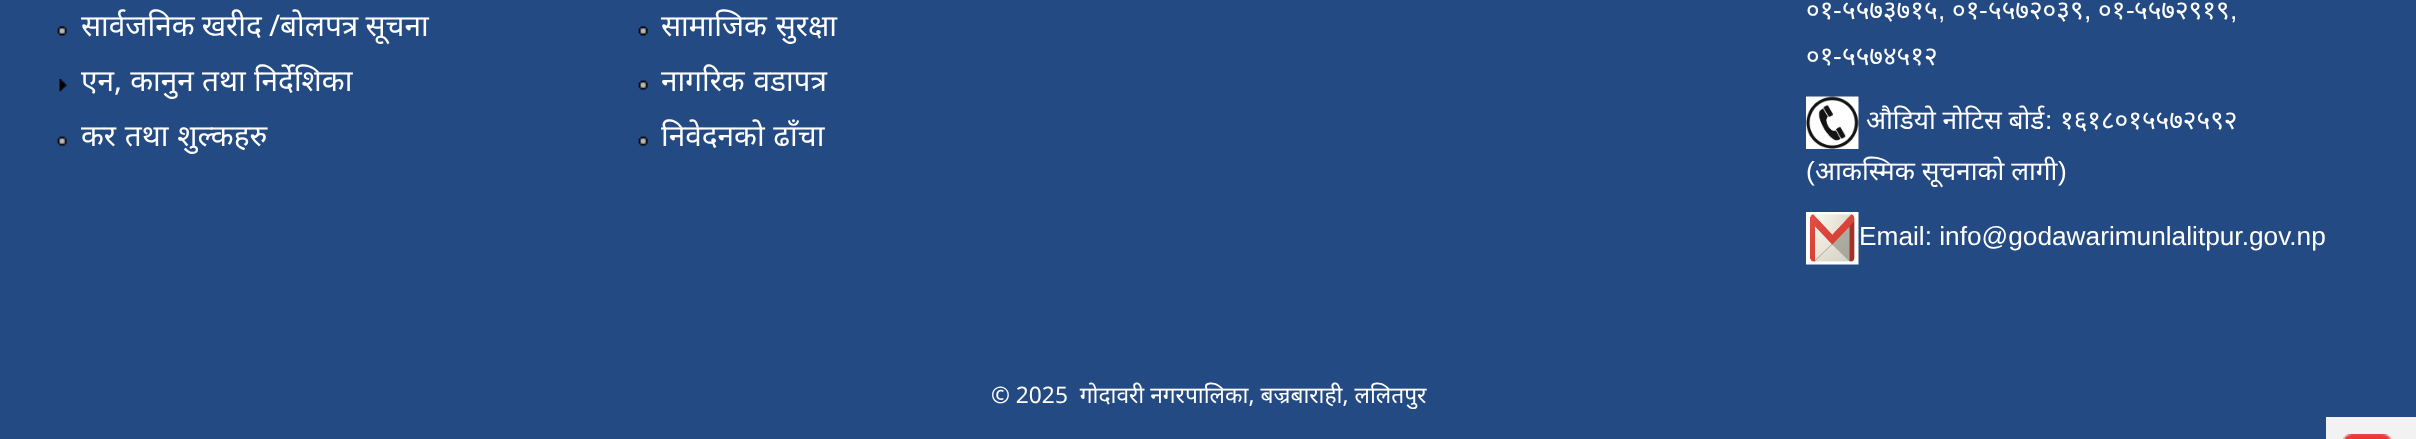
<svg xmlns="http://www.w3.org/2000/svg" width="2416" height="439">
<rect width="100%" height="100%" fill="#234a83"/>
<image x="57" y="26" width="10" height="10" href="media/1.png"/>
<text x="81" y="36" word-spacing="-0.5" style="font-family:Noto Sans;font-size:29.75px;fill:#fff">सार्वजनिक खरीद /बोलपत्र सूचना</text>
<image x="59" y="79" width="8" height="13" href="media/2.png"/>
<text x="81" y="91" word-spacing="0.5" style="font-family:Noto Sans;font-size:29.75px;fill:#fff">एन, कानुन तथा निर्देशिका</text>
<image x="57" y="136" width="10" height="10" href="media/3.png"/>
<text x="81" y="146" word-spacing="1" style="font-family:Noto Sans;font-size:29.75px;fill:#fff">कर तथा शुल्कहरु</text>
<image x="638" y="26" width="10" height="10" href="media/4.png"/>
<text x="661" y="36" word-spacing="1" style="font-family:Noto Sans;font-size:29.75px;fill:#fff">सामाजिक सुरक्षा</text>
<image x="638" y="80" width="10" height="10" href="media/5.png"/>
<text x="661" y="91" word-spacing="1" style="font-family:Noto Sans;font-size:29.75px;fill:#fff">नागरिक वडापत्र</text>
<image x="638" y="136" width="10" height="10" href="media/5.png"/>
<text x="661" y="146" word-spacing="1" style="font-family:Noto Sans;font-size:29.75px;fill:#fff">निवेदनको ढाँचा</text>
<text x="1806" y="19" style="font-family:Noto Sans;font-size:26.25px;fill:#fff">०१</text>
<text x="1833" y="19" style="font-family:Liberation Sans;font-size:26.25px;fill:#fff">-</text>
<text x="1842" y="19" style="font-family:Noto Sans;font-size:26.25px;fill:#fff">५५७३७१५</text>
<text x="1952" y="19" style="font-family:Noto Sans;font-size:26.25px;fill:#fff">०१</text>
<text x="1979" y="19" style="font-family:Liberation Sans;font-size:26.25px;fill:#fff">-</text>
<text x="1988" y="19" style="font-family:Noto Sans;font-size:26.25px;fill:#fff">५५७२०३९</text>
<text x="2098" y="19" style="font-family:Noto Sans;font-size:26.25px;fill:#fff">०१</text>
<text x="2126" y="19" style="font-family:Liberation Sans;font-size:26.25px;fill:#fff">-</text>
<text x="2134" y="19" style="font-family:Noto Sans;font-size:26.25px;fill:#fff">५५७२९१९</text>
<text x="1938" y="19" style="font-family:Liberation Sans;font-size:26.25px;fill:#fff">,</text>
<text x="2084" y="19" style="font-family:Liberation Sans;font-size:26.25px;fill:#fff">,</text>
<text x="2230" y="19" style="font-family:Liberation Sans;font-size:26.25px;fill:#fff">,</text>
<text x="1806" y="65" style="font-family:Noto Sans;font-size:26.25px;fill:#fff">०१</text>
<text x="1833" y="65" style="font-family:Liberation Sans;font-size:26.25px;fill:#fff">-</text>
<text x="1842" y="65" style="font-family:Noto Sans;font-size:26.25px;fill:#fff">५५७४५१२</text>
<image x="1806" y="96" width="53" height="53" href="media/6.png"/>
<text x="1866" y="129" style="font-family:Noto Sans;font-size:26.25px;fill:#fff">औडियो नोटिस बोर्ड</text>
<text x="2045" y="129" style="font-family:Liberation Sans;font-size:26.25px;fill:#fff">:</text>
<text x="2060" y="129" style="font-family:Noto Sans;font-size:26.25px;fill:#fff">१६१८०१५५७२५९२</text>
<text x="1806" y="180" style="font-family:Liberation Sans;font-size:26.25px;fill:#fff">(</text>
<text x="1815" y="180" style="font-family:Noto Sans;font-size:26.25px;fill:#fff">आकस्मिक सूचनाको लागी</text>
<text x="2058" y="180" style="font-family:Liberation Sans;font-size:26.25px;fill:#fff">)</text>
<image x="1806" y="212" width="53" height="53" href="media/7.png"/>
<text x="1859" y="245" style="font-family:Liberation Sans;font-size:26.25px;fill:#fff">Email: info@godawarimunlalitpur.gov.np</text>
<text x="991" y="403" style="font-family:Noto Sans;font-size:22.75px;fill:#fff" xml:space="preserve">© 2025  गोदावरी नगरपालिका, बज्रबाराही, ललितपुर</text>
<rect x="2326" y="417" width="90" height="22" fill="#f2f2f2"/>
<image x="2343" y="434" width="48" height="5" href="media/8.png"/>
</svg>
